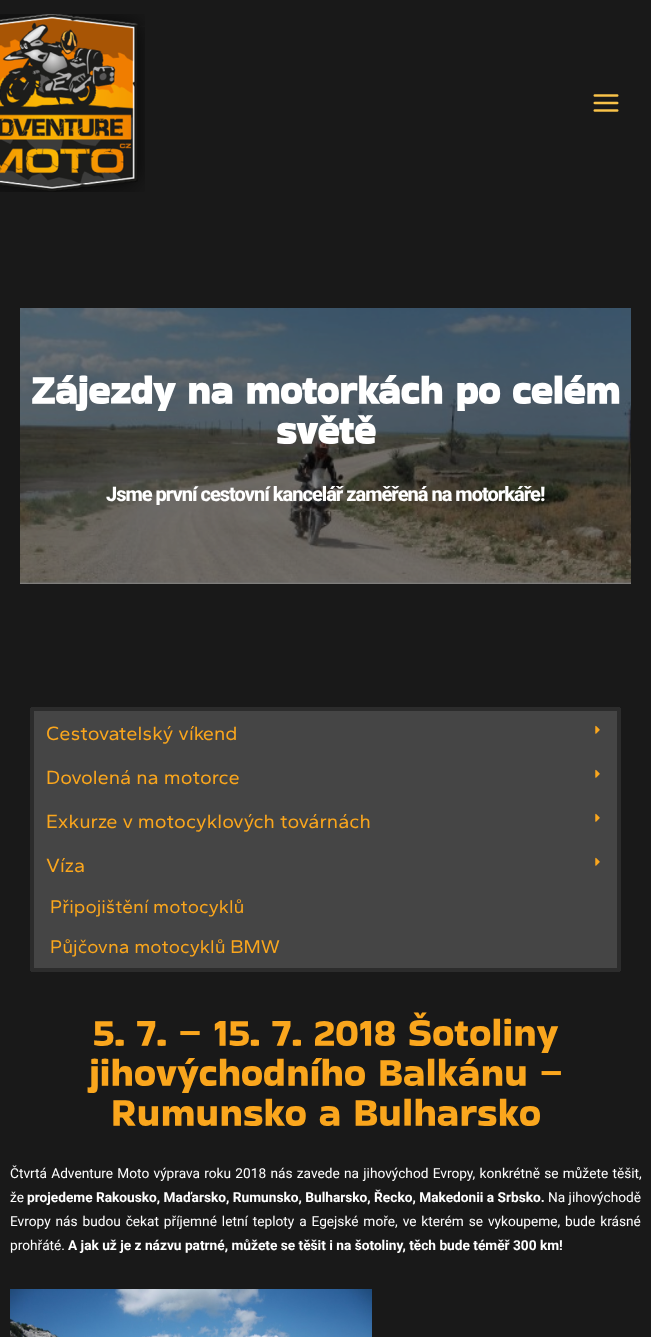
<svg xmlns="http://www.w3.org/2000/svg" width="651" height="1337">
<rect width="100%" height="100%" fill="#191919"/>
<image x="0" y="14" width="145" height="178" href="media/1.png"/>
<image x="593" y="94" width="26" height="18" href="media/2.png"/>
<image x="20" y="308" width="611" height="276" href="media/3.png"/>
<text x="31" y="404" style="font-family:Bakbak One;font-size:40px;font-weight:bold;fill:#fff">Zájezdy na motorkách po celém</text>
<text x="276" y="444" style="font-family:Bakbak One;font-size:40px;font-weight:bold;fill:#fff">světě</text>
<text x="106" y="501" style="font-family:Roboto;font-size:20px;font-weight:800;letter-spacing:-1px;fill:#fff">Jsme první cestovní kancelář zaměřená na motorkáře!</text>
<rect x="31" y="707" width="589" height="4" fill="#2c2c2c"/>
<rect x="617" y="708" width="4" height="263" fill="#2c2c2c"/>
<rect x="30" y="708" width="4" height="219" fill="#2c2c2c"/>
<rect x="34" y="711" width="583" height="257" fill="#454545"/>
<text x="46" y="740" style="font-family:Gantari;font-size:20px;fill:#faa61d">Cestovatelský víkend</text>
<image x="595" y="725" width="5" height="9" href="media/4.png"/>
<text x="46" y="784" style="font-family:Gantari;font-size:20px;fill:#faa61d">Dovolená na motorce</text>
<image x="595" y="769" width="5" height="9" href="media/4.png"/>
<text x="46" y="828" style="font-family:Gantari;font-size:20px;fill:#faa61d">Exkurze v motocyklových továrnách</text>
<image x="595" y="813" width="5" height="9" href="media/4.png"/>
<text x="46" y="872" style="font-family:Gantari;font-size:20px;fill:#faa61d">Víza</text>
<image x="595" y="857" width="5" height="9" href="media/4.png"/>
<text x="50" y="913" style="font-family:Gantari;font-size:19.1px;fill:#faa61d">Připojištění motocyklů</text>
<rect x="31" y="968" width="589" height="4" fill="#2c2c2c"/>
<rect x="30" y="927" width="4" height="44" fill="#2c2c2c"/>
<text x="50" y="953" style="font-family:Gantari;font-size:19.1px;fill:#faa61d">Půjčovna motocyklů BMW</text>
<text x="93" y="1046" style="font-family:Bakbak One;font-size:40px;fill:#faa61d">5. 7. – 15. 7. 2018 Šotoliny</text>
<text x="89" y="1086" style="font-family:Bakbak One;font-size:40px;fill:#faa61d">jihovýchodního Balkánu –</text>
<text x="111" y="1126" style="font-family:Bakbak One;font-size:40px;fill:#faa61d">Rumunsko a Bulharsko</text>
<text x="10" y="1178" word-spacing="0.9" style="font-family:Roboto;font-size:13.7px;fill:#fff">Čtvrtá Adventure Moto výprava roku 2018 nás zavede na jihovýchod Evropy, konkrétně se můžete těšit,</text>
<text x="10" y="1202" style="font-family:Roboto;font-size:13.7px;fill:#fff">že</text>
<text x="27" y="1202" style="font-family:Roboto;font-size:13.7px;font-weight:bold;fill:#fff">projedeme Rakousko, Maďarsko, Rumunsko, Bulharsko, Řecko, Makedonii a Srbsko.</text>
<text x="548" y="1202" style="font-family:Roboto;font-size:13.7px;fill:#fff">Na jihovýchodě</text>
<text x="10" y="1226" word-spacing="1.5" style="font-family:Roboto;font-size:13.7px;fill:#fff">Evropy nás budou čekat příjemné letní teploty a Egejské moře, ve kterém se vykoupeme, bude krásné</text>
<text x="10" y="1250" style="font-family:Roboto;font-size:13.7px;fill:#fff">prohřáté.</text>
<text x="68" y="1250" style="font-family:Roboto;font-size:13.7px;font-weight:bold;fill:#fff">A jak už je z názvu patrné, můžete se těšit i na šotoliny, těch bude téměř 300 km!</text>
<image x="10" y="1289" width="362" height="48" href="media/5.png"/>
</svg>
